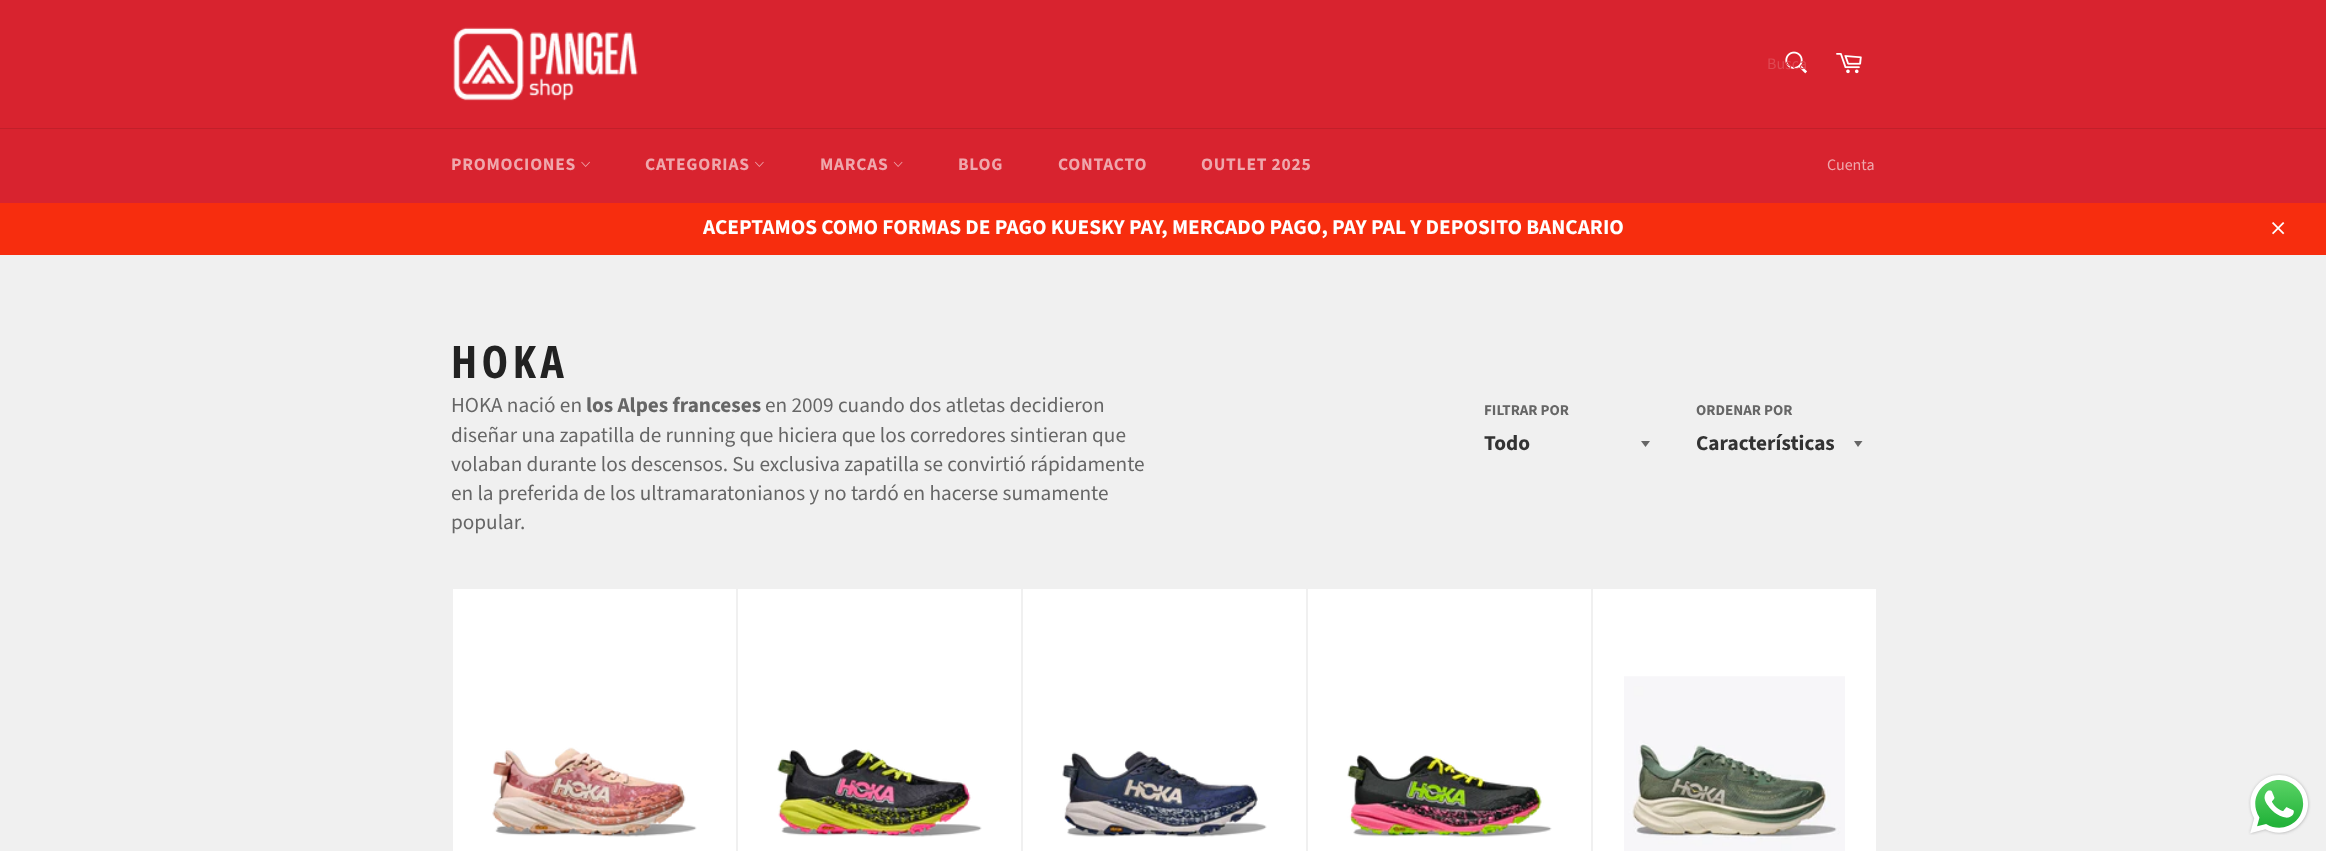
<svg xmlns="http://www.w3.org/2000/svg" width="2326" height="851">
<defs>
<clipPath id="clip1"><rect x="1766" y="53" width="40" height="22"/></clipPath>
</defs>
<rect width="100%" height="100%" fill="#f0f0f0"/>
<rect width="2326" height="128" fill="#d8232f"/>
<image x="453" y="27" width="185" height="74" href="media/1.png"/>
<image x="1785" y="51" width="22" height="23" href="media/2.png"/>
<g clip-path="url(#clip1)">
<text x="1767" y="69" style="font-family:Source Sans Pro;font-size:16px;fill:#df4852">Busca</text>
</g>
<image x="1836" y="53" width="26" height="21" href="media/3.png"/>
<rect y="129" width="2326" height="74" fill="#d8232f"/>
<rect y="128" width="2326" height="1" fill="#c21f2a"/>
<text x="451" y="170" style="font-family:Source Sans Pro;font-size:17.5px;font-weight:bold;letter-spacing:0.75px;fill:#efa7ac">PROMOCIONES</text>
<image x="581" y="161" width="9" height="6" href="media/4.png"/>
<text x="645" y="170" style="font-family:Source Sans Pro;font-size:17.5px;font-weight:bold;letter-spacing:0.75px;fill:#efa7ac">CATEGORIAS</text>
<image x="755" y="161" width="9" height="6" href="media/5.png"/>
<text x="820" y="170" style="font-family:Source Sans Pro;font-size:17.5px;font-weight:bold;letter-spacing:0.75px;fill:#efa7ac">MARCAS</text>
<image x="893" y="161" width="10" height="6" href="media/6.png"/>
<text x="958" y="170" style="font-family:Source Sans Pro;font-size:17.5px;font-weight:bold;letter-spacing:0.75px;fill:#efa7ac">BLOG</text>
<text x="1058" y="170" style="font-family:Source Sans Pro;font-size:17.5px;font-weight:bold;letter-spacing:0.75px;fill:#efa7ac">CONTACTO</text>
<text x="1201" y="170" style="font-family:Source Sans Pro;font-size:17.5px;font-weight:bold;letter-spacing:0.75px;fill:#efa7ac">OUTLET 2025</text>
<text x="1827" y="170" style="font-family:Source Sans Pro;font-size:16px;fill:#efa7ac">Cuenta</text>
<rect y="203" width="2326" height="52" fill="#f72d0e"/>
<text x="703" y="234" style="font-family:Source Sans Pro;font-size:21.25px;font-weight:bold;fill:#fff">ACEPTAMOS COMO FORMAS DE PAGO KUESKY PAY, MERCADO PAGO, PAY PAL Y DEPOSITO BANCARIO</text>
<image x="2272" y="222" width="13" height="13" href="media/7.png"/>
<text x="451" y="378" style="font-family:Open Sans Condensed;font-size:45px;font-weight:bold;letter-spacing:4.5px;fill:#222">HOKA</text>
<text x="451" y="412" style="font-family:Source Sans Pro;font-size:21.25px;fill:#666">HOKA nació en</text>
<text x="586" y="412" style="font-family:Source Sans Pro;font-size:21.25px;font-weight:bold;fill:#666">los Alpes franceses</text>
<text x="765" y="412" style="font-family:Source Sans Pro;font-size:21.25px;fill:#666">en 2009 cuando dos atletas decidieron</text>
<text x="451" y="442" style="font-family:Source Sans Pro;font-size:21.25px;fill:#666">diseñar una zapatilla de running que hiciera que los corredores sintieran que</text>
<text x="451" y="471" style="font-family:Source Sans Pro;font-size:21.25px;fill:#666">volaban durante los descensos. Su exclusiva zapatilla se convirtió rápidamente</text>
<text x="451" y="500" style="font-family:Source Sans Pro;font-size:21.25px;fill:#666">en la preferida de los ultramaratonianos y no tardó en hacerse sumamente</text>
<text x="451" y="529" style="font-family:Source Sans Pro;font-size:21.25px;fill:#666">popular.</text>
<text x="1484" y="415" style="font-family:Source Sans Pro;font-size:15px;font-weight:bold;fill:#666">FILTRAR POR</text>
<path d="M1641 441l4.5 6l4.5-6z" fill="#666"/>
<text x="1484" y="450" style="font-family:Source Sans Pro;font-size:21.25px;font-weight:bold;fill:#333">Todo</text>
<text x="1696" y="415" style="font-family:Source Sans Pro;font-size:15px;font-weight:bold;fill:#666">ORDENAR POR</text>
<path d="M1854 441l4 6l4.5-6z" fill="#666"/>
<text x="1696" y="450" style="font-family:Source Sans Pro;font-size:21.25px;font-weight:bold;fill:#333">Características</text>
<rect x="453" y="589" width="283" height="262" fill="#fff"/>
<image x="492" y="747" width="205" height="90" href="media/8.png"/>
<rect x="738" y="589" width="283" height="262" fill="#fff"/>
<image x="777" y="749" width="205" height="88" href="media/9.png"/>
<rect x="1023" y="589" width="283" height="262" fill="#fff"/>
<image x="1062" y="751" width="205" height="86" href="media/10.png"/>
<rect x="1308" y="589" width="283" height="262" fill="#fff"/>
<image x="1347" y="755" width="205" height="82" href="media/11.png"/>
<rect x="1593" y="589" width="283" height="262" fill="#fff"/>
<image x="1624" y="676" width="221" height="175" href="media/12.png"/>
<image x="2248" y="773" width="63" height="62" href="media/13.png"/>
</svg>
